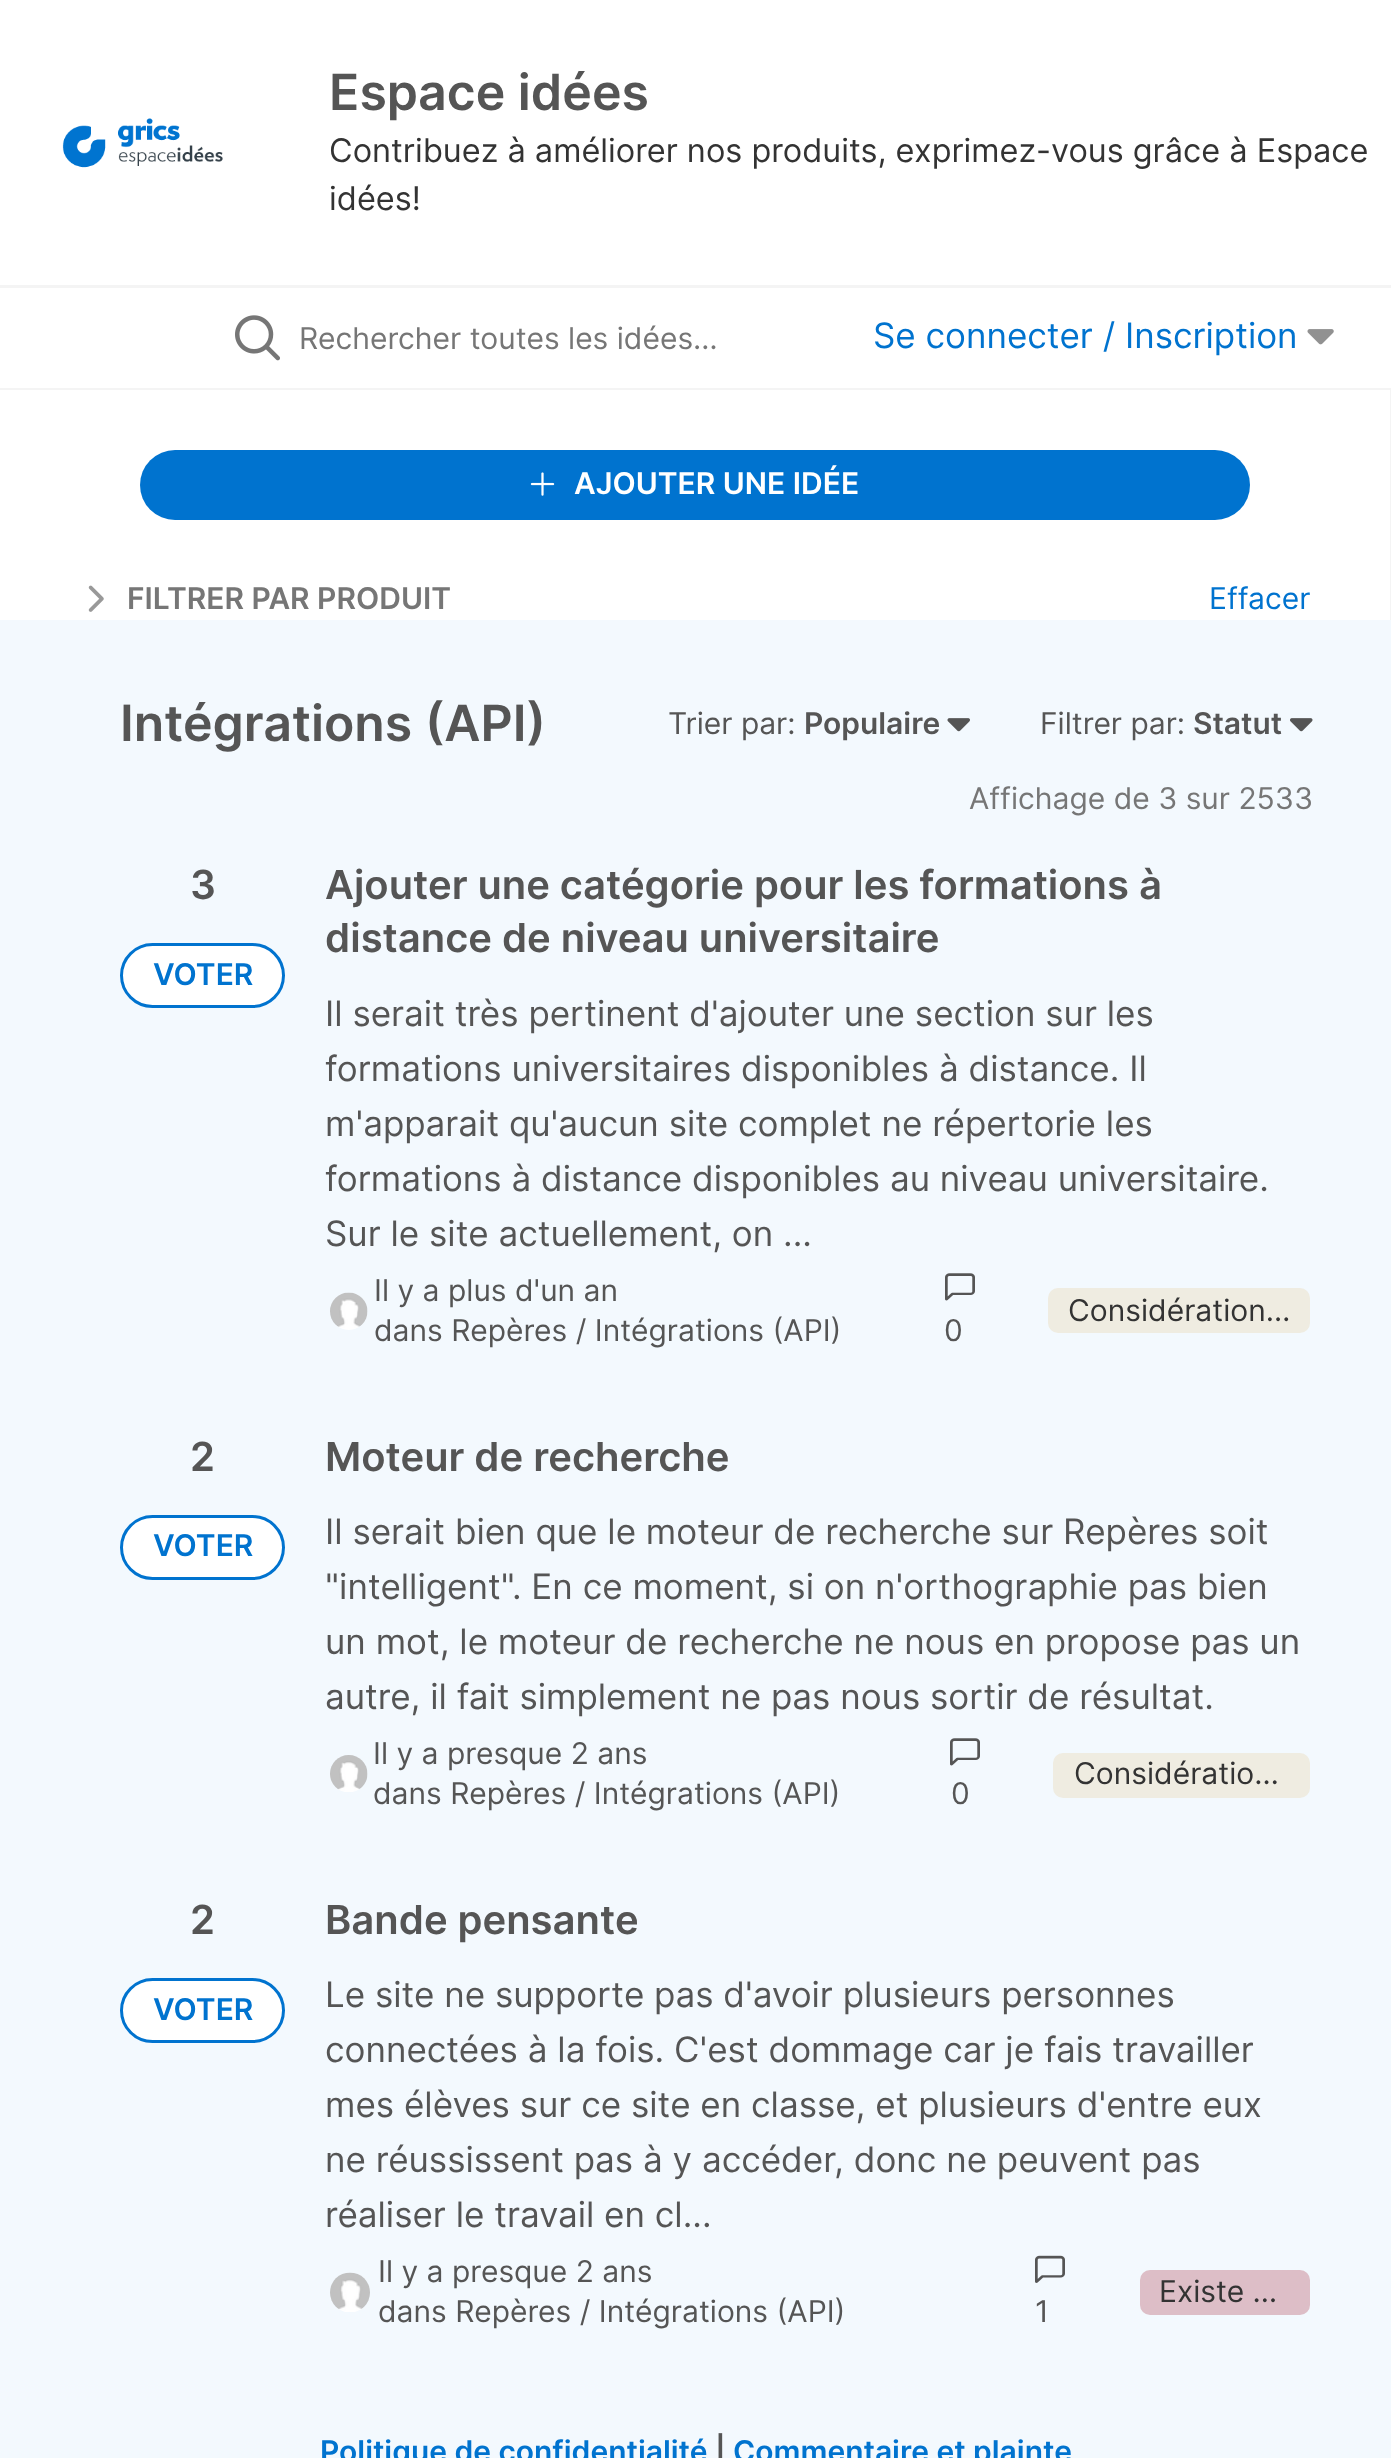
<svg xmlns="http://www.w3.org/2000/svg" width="1391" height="2458">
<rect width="100%" height="100%" fill="#f3f9fe"/>
<rect width="1391" height="285" fill="#fff"/>
<rect y="285" width="1391" height="3" fill="#f4f4f4"/>
<image x="62" y="118" width="161" height="50" href="media/1.png"/>
<text x="329" y="110" style="font-family:Inter;font-size:50px;font-weight:600;fill:#555">Espace idées</text>
<text x="329" y="162" style="font-family:Inter;font-size:32.5px;fill:#333">Contribuez à améliorer nos produits, exprimez-vous grâce à Espace</text>
<text x="329" y="210" style="font-family:Inter;font-size:32.5px;fill:#333">idées!</text>
<rect y="288" width="1391" height="100" fill="#fff"/>
<rect y="388" width="1391" height="2" fill="#f4f4f4"/>
<image x="235" y="315" width="45" height="46" href="media/2.png"/>
<text x="299" y="349" style="font-family:Inter;font-size:30px;fill:#767676">Rechercher toutes les idées…</text>
<text x="873" y="348" style="font-family:Inter;font-size:35px;fill:#0073cf">Se connecter / Inscription</text>
<image x="1307" y="329" width="27" height="16" href="media/3.png"/>
<rect y="390" width="1390" height="230" fill="#fff"/>
<rect x="1390" y="390" width="1" height="230" fill="#f4f4f4"/>
<rect x="140" y="450" width="1110" height="70" rx="35" fill="#0073cf"/>
<image x="530" y="472" width="25" height="24" href="media/4.png"/>
<text x="574" y="494" style="font-family:Inter;font-size:30px;font-weight:600;fill:#fff">AJOUTER UNE IDÉE</text>
<image x="88" y="585" width="16" height="27" href="media/5.png"/>
<text x="127" y="609" style="font-family:Inter;font-size:30px;font-weight:600;fill:#767676">FILTRER PAR PRODUIT</text>
<text x="1209" y="609" style="font-family:Inter;font-size:30px;fill:#0073cf">Effacer</text>
<text x="120" y="741" style="font-family:Inter;font-size:50px;font-weight:600;fill:#555">Intégrations (API)</text>
<text x="668" y="734" style="font-family:Inter;font-size:30px;fill:#555">Trier par:</text>
<text x="804" y="734" style="font-family:Inter;font-size:30px;font-weight:600;fill:#555">Populaire</text>
<image x="947" y="718" width="23" height="14" href="media/6.png"/>
<text x="1040" y="734" style="font-family:Inter;font-size:30px;fill:#555">Filtrer par:</text>
<text x="1193" y="734" style="font-family:Inter;font-size:30px;font-weight:600;fill:#555">Statut</text>
<image x="1290" y="718" width="23" height="14" href="media/7.png"/>
<text x="969" y="809" style="font-family:Inter;font-size:30px;fill:#767676">Affichage de 3 sur 2533</text>
<text x="190" y="899" style="font-family:Inter;font-size:40px;font-weight:600;fill:#555">3</text>
<rect x="121.5" y="944.5" width="162" height="62" rx="31" fill="#fff" stroke="#0073cf" stroke-width="3"/>
<text x="153" y="985" style="font-family:Inter;font-size:30px;font-weight:600;fill:#0073cf">VOTER</text>
<text x="325" y="899" style="font-family:Inter;font-size:40px;font-weight:600;fill:#555">Ajouter une catégorie pour les formations à</text>
<text x="325" y="952" style="font-family:Inter;font-size:40px;font-weight:600;fill:#555">distance de niveau universitaire</text>
<text x="325" y="1026" style="font-family:Inter;font-size:35px;fill:#555">Il serait très pertinent d'ajouter une section sur les</text>
<text x="325" y="1081" style="font-family:Inter;font-size:35px;fill:#555">formations universitaires disponibles à distance. Il</text>
<text x="325" y="1136" style="font-family:Inter;font-size:35px;fill:#555">m'apparait qu'aucun site complet ne répertorie les</text>
<text x="325" y="1191" style="font-family:Inter;font-size:35px;fill:#555">formations à distance disponibles au niveau universitaire.</text>
<text x="325" y="1246" style="font-family:Inter;font-size:35px;fill:#555">Sur le site actuellement, on ...</text>
<image x="330" y="1292" width="38" height="38" href="media/8.png"/>
<text x="374" y="1301" style="font-family:Inter;font-size:30px;fill:#555">Il y a plus d'un an</text>
<text x="374" y="1341" style="font-family:Inter;font-size:30px;fill:#555">dans Repères / Intégrations (API)</text>
<rect x="1048" y="1288" width="262" height="45" rx="10" fill="#efece1"/>
<text x="1068" y="1321" style="font-family:Inter;font-size:30px;fill:#333">Considération…</text>
<image x="945" y="1273" width="30" height="28" href="media/9.png"/>
<text x="944" y="1341" style="font-family:Inter;font-size:30px;fill:#555">0</text>
<text x="190" y="1471" style="font-family:Inter;font-size:40px;font-weight:600;fill:#555">2</text>
<rect x="121.5" y="1516.5" width="162" height="62" rx="31" fill="#fff" stroke="#0073cf" stroke-width="3"/>
<text x="153" y="1556" style="font-family:Inter;font-size:30px;font-weight:600;fill:#0073cf">VOTER</text>
<text x="325" y="1471" style="font-family:Inter;font-size:40px;font-weight:600;fill:#555">Moteur de recherche</text>
<text x="325" y="1544" style="font-family:Inter;font-size:35px;fill:#555">Il serait bien que le moteur de recherche sur Repères soit</text>
<text x="325" y="1599" style="font-family:Inter;font-size:35px;fill:#555">"intelligent". En ce moment, si on n'orthographie pas bien</text>
<text x="325" y="1654" style="font-family:Inter;font-size:35px;fill:#555">un mot, le moteur de recherche ne nous en propose pas un</text>
<text x="325" y="1709" style="font-family:Inter;font-size:35px;fill:#555">autre, il fait simplement ne pas nous sortir de résultat.</text>
<image x="330" y="1755" width="38" height="37" href="media/10.png"/>
<text x="373" y="1764" style="font-family:Inter;font-size:30px;fill:#555">Il y a presque 2 ans</text>
<text x="373" y="1804" style="font-family:Inter;font-size:30px;fill:#555">dans Repères / Intégrations (API)</text>
<rect x="1053" y="1753" width="257" height="45" rx="10" fill="#efece1"/>
<text x="1074" y="1784" style="font-family:Inter;font-size:30px;fill:#333">Considératio…</text>
<image x="950" y="1738" width="30" height="28" href="media/9.png"/>
<text x="951" y="1804" style="font-family:Inter;font-size:30px;fill:#555">0</text>
<text x="190" y="1934" style="font-family:Inter;font-size:40px;font-weight:600;fill:#555">2</text>
<rect x="121.5" y="1979.5" width="162" height="62" rx="31" fill="#fff" stroke="#0073cf" stroke-width="3"/>
<text x="153" y="2020" style="font-family:Inter;font-size:30px;font-weight:600;fill:#0073cf">VOTER</text>
<text x="325" y="1934" style="font-family:Inter;font-size:40px;font-weight:600;fill:#555">Bande pensante</text>
<text x="325" y="2007" style="font-family:Inter;font-size:35px;fill:#555">Le site ne supporte pas d'avoir plusieurs personnes</text>
<text x="325" y="2062" style="font-family:Inter;font-size:35px;fill:#555">connectées à la fois. C'est dommage car je fais travailler</text>
<text x="325" y="2117" style="font-family:Inter;font-size:35px;fill:#555">mes élèves sur ce site en classe, et plusieurs d'entre eux</text>
<text x="325" y="2172" style="font-family:Inter;font-size:35px;fill:#555">ne réussissent pas à y accéder, donc ne peuvent pas</text>
<text x="325" y="2227" style="font-family:Inter;font-size:35px;fill:#555">réaliser le travail en cl...</text>
<image x="330" y="2272" width="40" height="40" href="media/11.png"/>
<text x="378" y="2282" style="font-family:Inter;font-size:30px;fill:#555">Il y a presque 2 ans</text>
<text x="378" y="2322" style="font-family:Inter;font-size:30px;fill:#555">dans Repères / Intégrations (API)</text>
<rect x="1140" y="2270" width="170" height="45" rx="10" fill="#ddbec7"/>
<text x="1159" y="2302" style="font-family:Inter;font-size:30px;fill:#333">Existe …</text>
<image x="1035" y="2255" width="30" height="28" href="media/12.png"/>
<text x="1035" y="2322" style="font-family:Inter;font-size:30px;fill:#555">1</text>
<text x="320" y="2462" style="font-family:Inter;font-size:30px;font-weight:600;fill:#0073cf">Politique de confidentialité</text>
<text x="715" y="2462" style="font-family:Inter;font-size:30px;font-weight:600;fill:#555">|</text>
<text x="733" y="2462" style="font-family:Inter;font-size:30px;font-weight:600;fill:#0073cf">Commentaire et plainte</text>
</svg>
